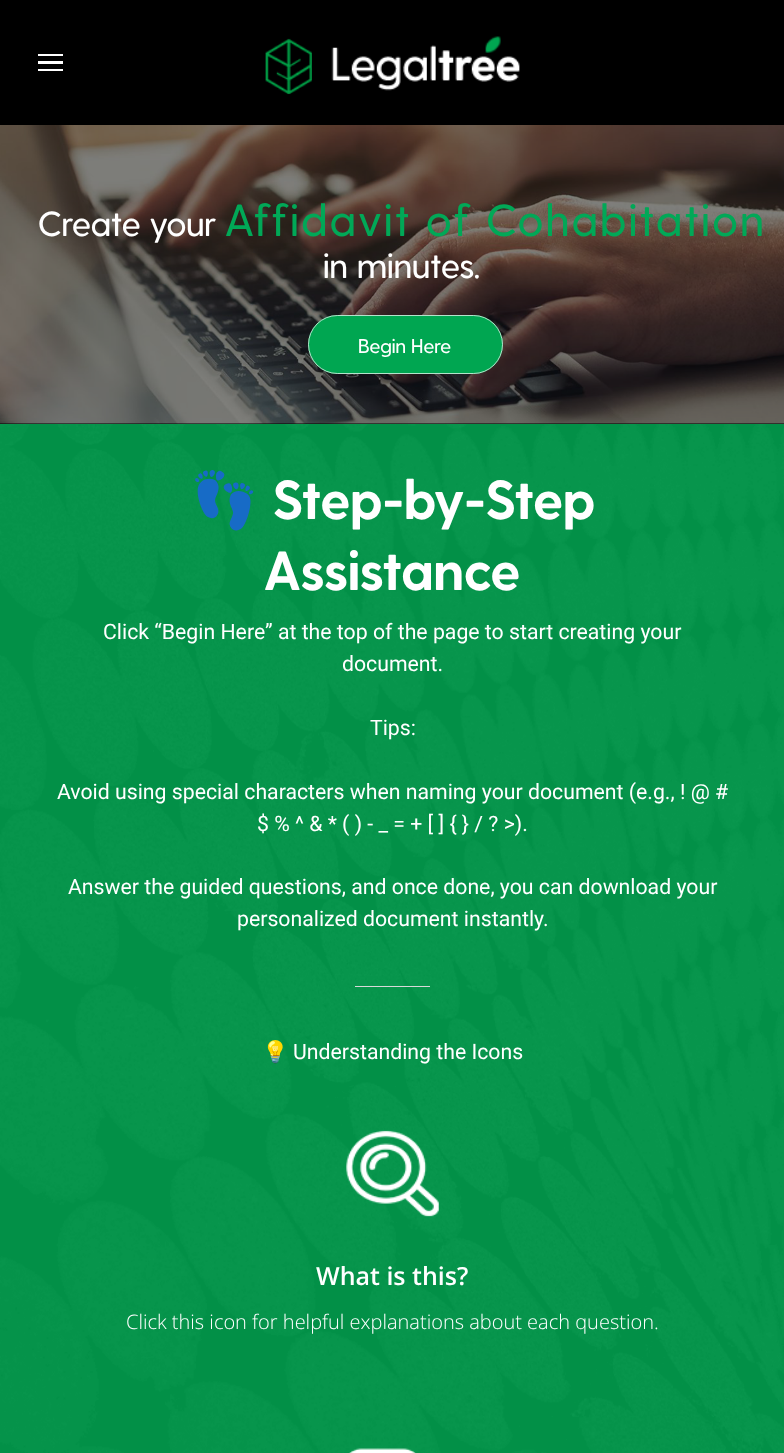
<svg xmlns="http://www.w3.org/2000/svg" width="784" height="1453">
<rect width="100%" height="100%" fill="#00a651"/>
<rect width="784" height="125" fill="#000"/>
<rect x="38" y="61" width="25" height="3" fill="#fff"/>
<rect x="38" y="54" width="25" height="2" fill="#fff"/>
<rect x="38" y="69" width="25" height="2" fill="#fff"/>
<image x="265" y="36" width="255" height="59" href="media/1.png"/>
<rect y="423" width="784" height="1" fill="#000"/>
<image x="0" y="125" width="784" height="299" href="media/2.png"/>
<text x="38" y="236" style="font-family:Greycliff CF;font-size:35px;font-weight:500;fill:#fff">Create your</text>
<text x="225" y="236" style="font-family:Greycliff CF;font-size:45px;font-weight:500;letter-spacing:2.5px;fill:#01a857">Affidavit of Cohabitation</text>
<text x="323" y="278" style="font-family:Greycliff CF;font-size:35px;font-weight:500;fill:#fff">in minutes.</text>
<rect x="308" y="315" width="195" height="59" rx="29.5" fill="#00a651"/>
<rect x="308.5" y="315.5" width="194" height="58" rx="29" fill="none" stroke="#ffffffb3"/>
<text x="358" y="353" style="font-family:Greycliff CF;font-size:20px;font-weight:500;fill:#fff">Begin Here</text>
<image x="0" y="424" width="784" height="1029" href="media/3.png"/>
<text x="190" y="519" style="font-family:Noto Color Emoji;font-size:55px;font-weight:bold;fill:#fff">👣</text>
<text x="273" y="519" style="font-family:Greycliff CF;font-size:55px;font-weight:bold;fill:#fff">Step-by-Step</text>
<text x="264" y="590" style="font-family:Greycliff CF;font-size:55px;font-weight:bold;fill:#fff">Assistance</text>
<text x="103" y="639" style="font-family:Roboto;font-size:21.25px;fill:#fff">Click “Begin Here” at the top of the page to start creating your</text>
<text x="342" y="671" style="font-family:Roboto;font-size:21.25px;fill:#fff">document.</text>
<text x="370" y="735" style="font-family:Roboto;font-size:21.25px;fill:#fff">Tips:</text>
<text x="57" y="799" style="font-family:Roboto;font-size:21.25px;fill:#fff">Avoid using special characters when naming your document (e.g., ! @ #</text>
<text x="257" y="831" style="font-family:Roboto;font-size:21.25px;fill:#fff">$ % ^ &amp; * ( ) - _ = + [ ] { } / ? &gt;).</text>
<text x="68" y="894" style="font-family:Roboto;font-size:21.25px;fill:#fff">Answer the guided questions, and once done, you can download your</text>
<text x="237" y="926" style="font-family:Roboto;font-size:21.25px;fill:#fff">personalized document instantly.</text>
<rect x="355" y="986" width="75" height="1" fill="#d9d9d9"/>
<text x="262" y="1059" style="font-family:Noto Color Emoji;font-size:21.25px;fill:#fff">💡</text>
<text x="293" y="1059" style="font-family:Roboto;font-size:21.25px;fill:#fff">Understanding the Icons</text>
<image x="346" y="1130" width="93" height="87" href="media/4.png"/>
<text x="316" y="1285" style="font-family:Open Sans;font-size:25px;font-weight:600;fill:#fff">What is this?</text>
<text x="126" y="1329" style="font-family:Open Sans;font-size:20px;font-weight:300;fill:#fff">Click this icon for helpful explanations about each question.</text>
<image x="349" y="1448" width="67" height="5" href="media/5.png"/>
</svg>
